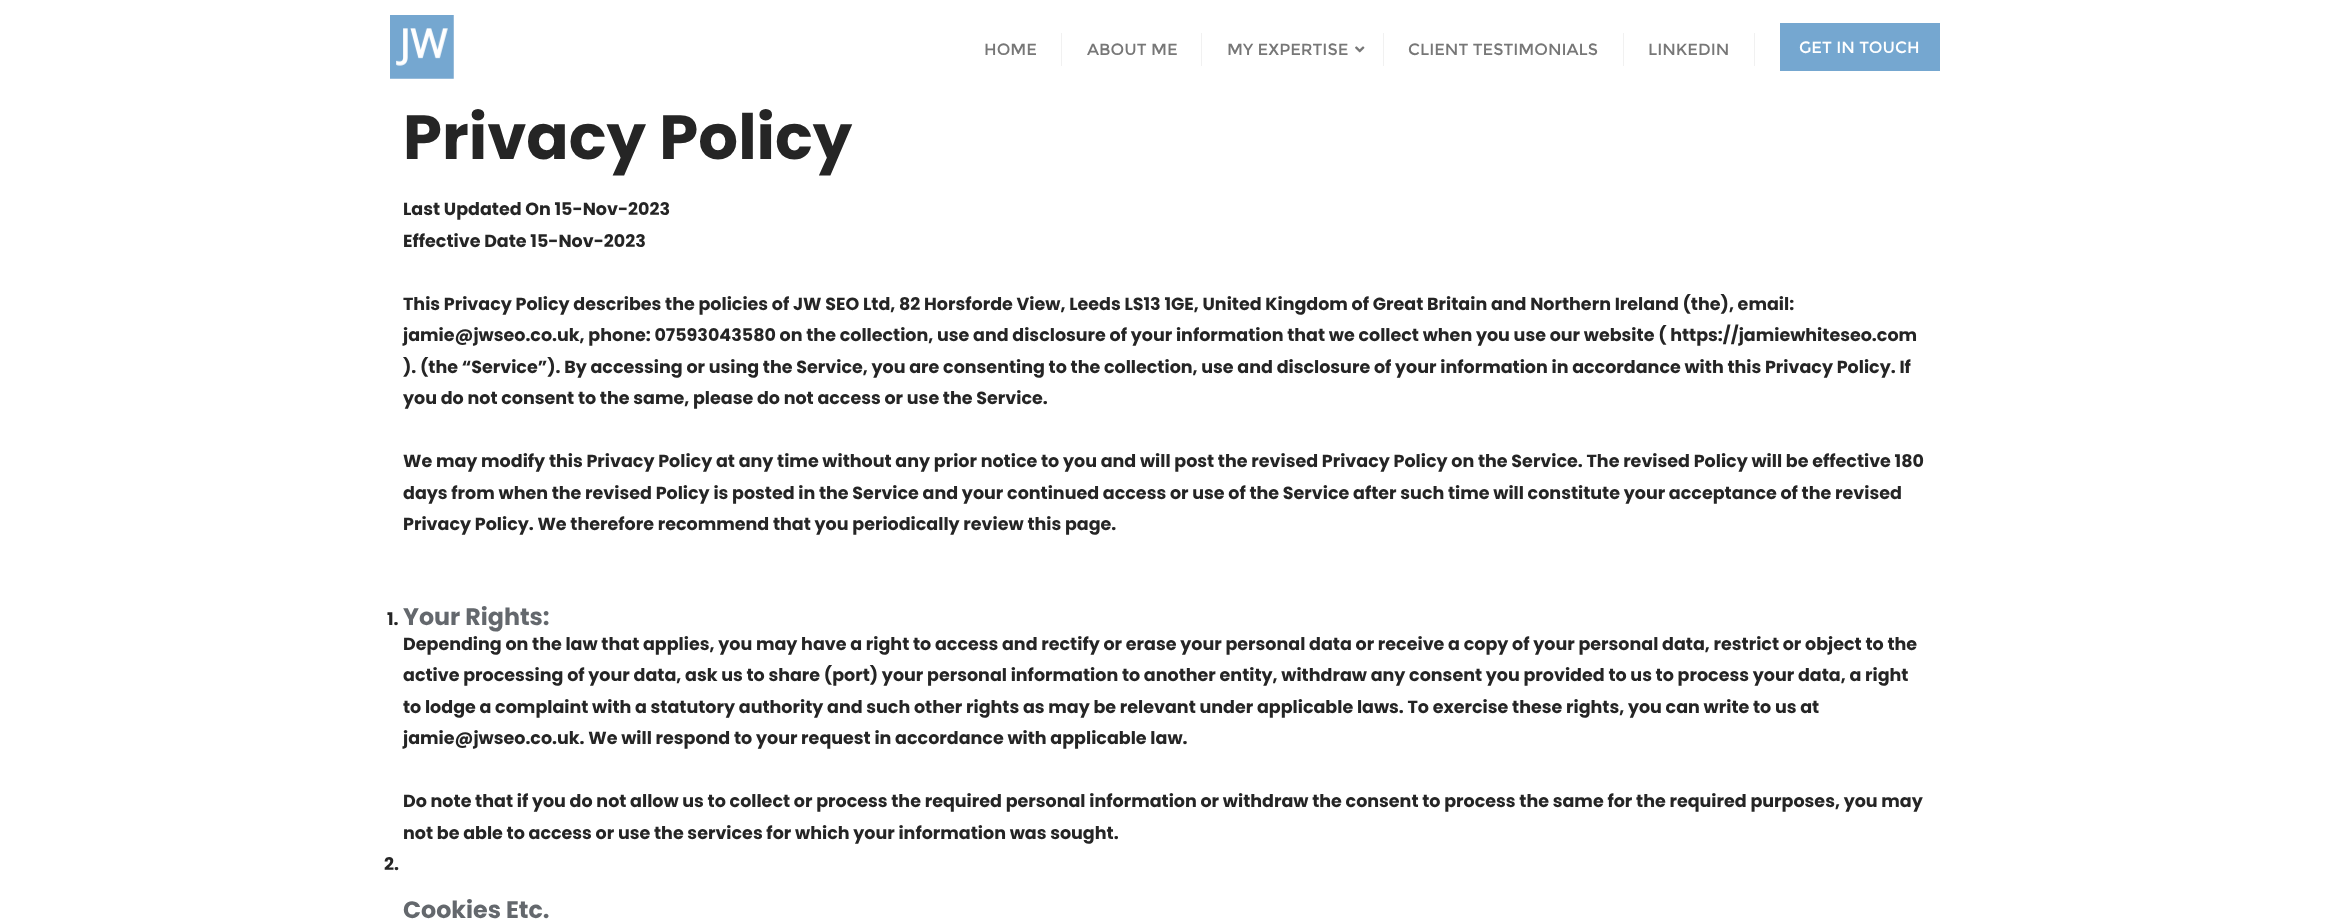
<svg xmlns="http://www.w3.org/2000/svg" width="2329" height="919">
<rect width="100%" height="100%" fill="#fff"/>
<image x="390" y="15" width="64" height="64" href="media/1.png"/>
<text x="984" y="55" style="font-family:Montserrat;font-size:16.25px;fill:#777">HOME</text>
<rect x="1061" y="33" width="1" height="33" fill="#f1f1f1"/>
<text x="1087" y="55" style="font-family:Montserrat;font-size:16.25px;fill:#777">ABOUT ME</text>
<rect x="1201" y="33" width="1" height="33" fill="#f1f1f1"/>
<text x="1227" y="55" style="font-family:Montserrat;font-size:16.25px;fill:#777">MY EXPERTISE</text>
<image x="1355" y="46" width="10" height="7" href="media/2.png"/>
<rect x="1383" y="33" width="1" height="33" fill="#f1f1f1"/>
<text x="1408" y="55" style="font-family:Montserrat;font-size:16.25px;fill:#777">CLIENT TESTIMONIALS</text>
<rect x="1623" y="33" width="1" height="33" fill="#f1f1f1"/>
<text x="1648" y="55" style="font-family:Montserrat;font-size:16.25px;fill:#777">LINKEDIN</text>
<rect x="1754" y="33" width="1" height="33" fill="#f1f1f1"/>
<rect x="1780" y="23" width="160" height="48" fill="#75a7d0"/>
<text x="1799" y="53" style="font-family:Montserrat;font-size:16.25px;fill:#fff">GET IN TOUCH</text>
<text x="403" y="159" style="font-family:Poppins;font-size:62.5px;font-weight:bold;fill:#252525">Privacy Policy</text>
<text x="403" y="215" style="font-family:Poppins;font-size:17.5px;font-weight:bold;fill:#252525">Last Updated On 15-Nov-2023</text>
<text x="403" y="247" style="font-family:Poppins;font-size:17.5px;font-weight:bold;fill:#252525">Effective Date 15-Nov-2023</text>
<text x="403" y="310" style="font-family:Poppins;font-size:17.5px;font-weight:bold;fill:#252525">This Privacy Policy describes the policies of JW SEO Ltd, 82 Horsforde View, Leeds LS13 1GE, United Kingdom of Great Britain and Northern Ireland (the), email:</text>
<text x="403" y="341" style="font-family:Poppins;font-size:17.5px;font-weight:bold;fill:#252525">jamie@jwseo.co.uk, phone: 07593043580 on the collection, use and disclosure of your information that we collect when you use our website ( https://jamiewhiteseo.com</text>
<text x="403" y="373" style="font-family:Poppins;font-size:17.5px;font-weight:bold;fill:#252525">). (the “Service”). By accessing or using the Service, you are consenting to the collection, use and disclosure of your information in accordance with this Privacy Policy. If</text>
<text x="403" y="404" style="font-family:Poppins;font-size:17.5px;font-weight:bold;fill:#252525">you do not consent to the same, please do not access or use the Service.</text>
<text x="403" y="467" style="font-family:Poppins;font-size:17.5px;font-weight:bold;fill:#252525">We may modify this Privacy Policy at any time without any prior notice to you and will post the revised Privacy Policy on the Service. The revised Policy will be effective 180</text>
<text x="403" y="499" style="font-family:Poppins;font-size:17.5px;font-weight:bold;fill:#252525">days from when the revised Policy is posted in the Service and your continued access or use of the Service after such time will constitute your acceptance of the revised</text>
<text x="403" y="530" style="font-family:Poppins;font-size:17.5px;font-weight:bold;fill:#252525">Privacy Policy. We therefore recommend that you periodically review this page.</text>
<text x="387" y="625" style="font-family:Poppins;font-size:17.5px;font-weight:bold;fill:#252525">1.</text>
<text x="403" y="625" style="font-family:Poppins;font-size:23.75px;font-weight:bold;fill:#64686d">Your Rights:</text>
<text x="403" y="650" style="font-family:Poppins;font-size:17.5px;font-weight:bold;fill:#252525">Depending on the law that applies, you may have a right to access and rectify or erase your personal data or receive a copy of your personal data, restrict or object to the</text>
<text x="403" y="681" style="font-family:Poppins;font-size:17.5px;font-weight:bold;fill:#252525">active processing of your data, ask us to share (port) your personal information to another entity, withdraw any consent you provided to us to process your data, a right</text>
<text x="403" y="713" style="font-family:Poppins;font-size:17.5px;font-weight:bold;fill:#252525">to lodge a complaint with a statutory authority and such other rights as may be relevant under applicable laws. To exercise these rights, you can write to us at</text>
<text x="403" y="744" style="font-family:Poppins;font-size:17.5px;font-weight:bold;fill:#252525">jamie@jwseo.co.uk. We will respond to your request in accordance with applicable law.</text>
<text x="403" y="807" style="font-family:Poppins;font-size:17.5px;font-weight:bold;fill:#252525">Do note that if you do not allow us to collect or process the required personal information or withdraw the consent to process the same for the required purposes, you may</text>
<text x="403" y="839" style="font-family:Poppins;font-size:17.5px;font-weight:bold;fill:#252525">not be able to access or use the services for which your information was sought.</text>
<text x="384" y="870" style="font-family:Poppins;font-size:17.5px;font-weight:bold;fill:#252525">2.</text>
<text x="403" y="918" style="font-family:Poppins;font-size:23.75px;font-weight:bold;fill:#64686d">Cookies Etc.</text>
</svg>
